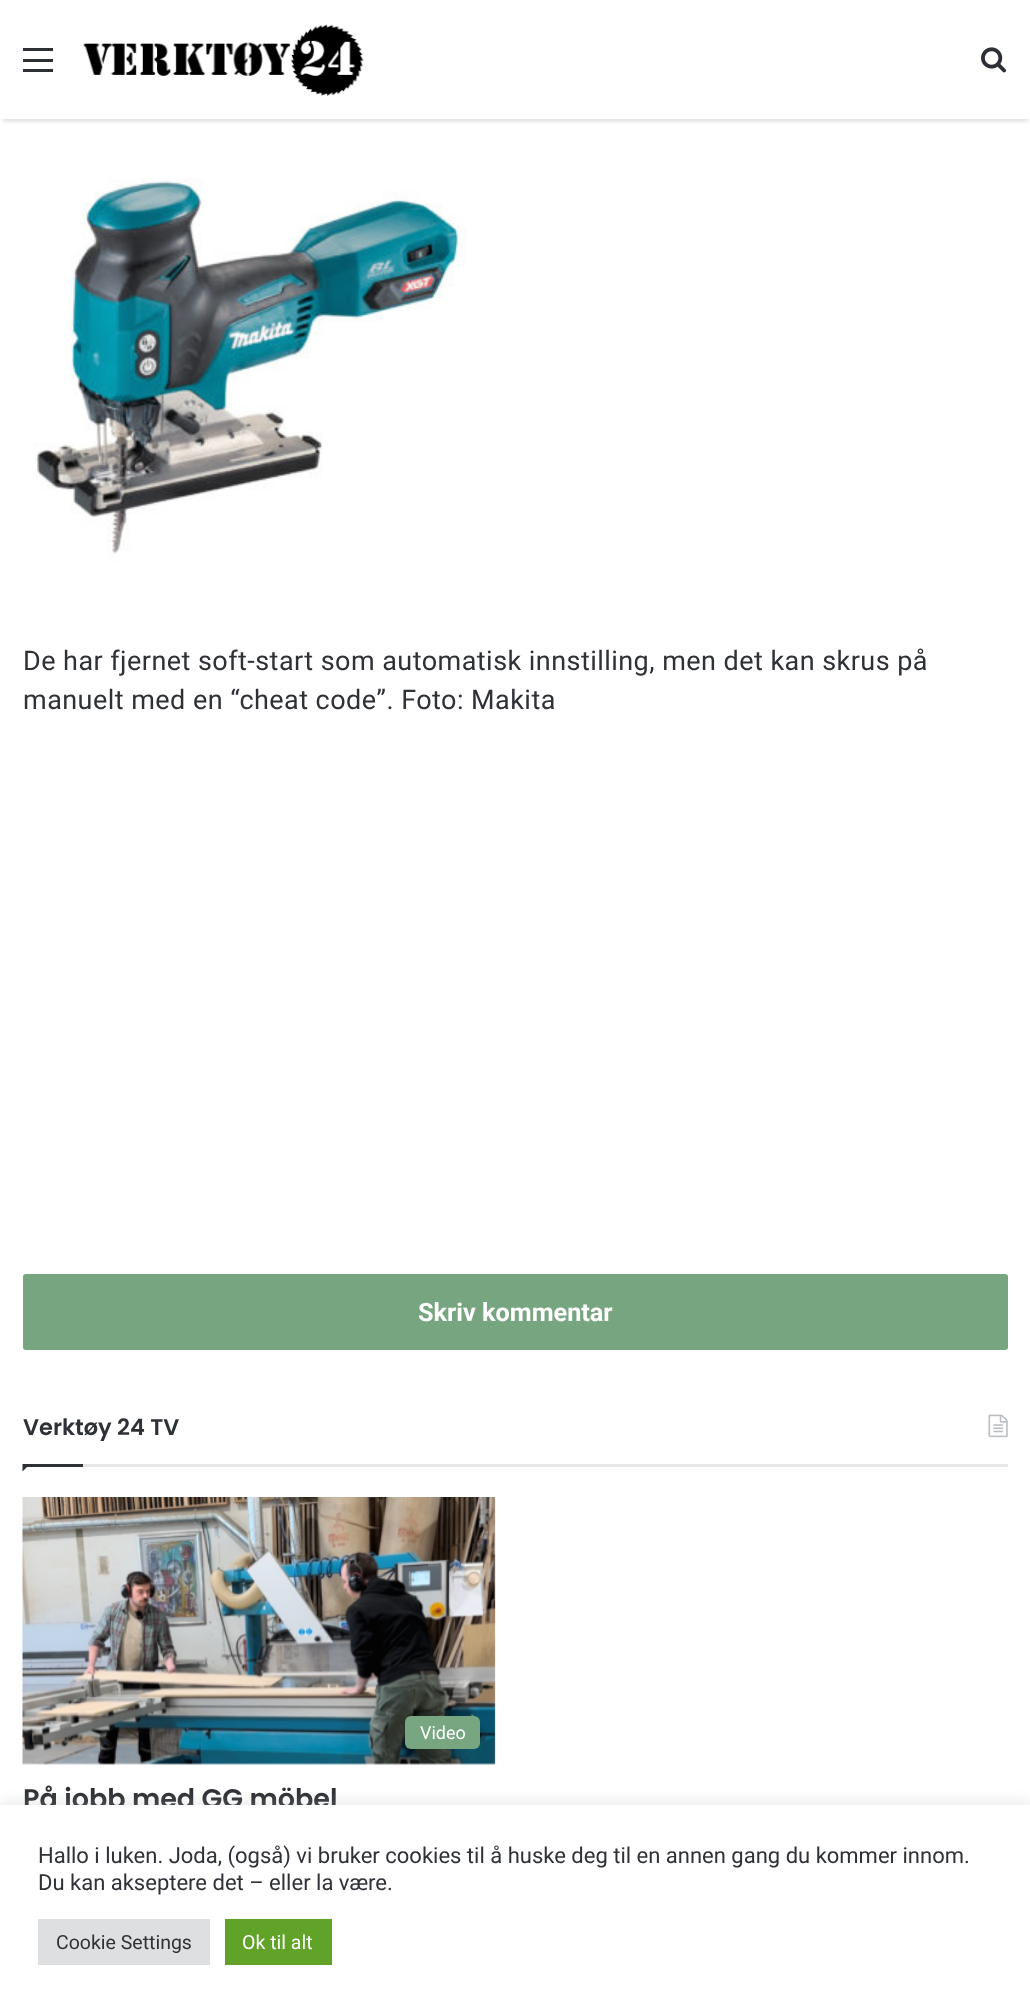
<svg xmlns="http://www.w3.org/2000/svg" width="1030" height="2009">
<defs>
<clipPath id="clip1"><path d="M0 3h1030v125h-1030zm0-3h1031v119h-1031z" clip-rule="evenodd"/></clipPath>
</defs>
<rect width="100%" height="100%" fill="#fff"/>
<g clip-path="url(#clip1)">
<rect x="3" y="9" width="1025" height="113" fill="#0000001a" filter="blur(1.5px)"/>
</g>
<rect x="2" y="118" width="1027" height="1" fill="#fffffff2"/>
<rect x="23" y="59" width="30" height="3" fill="#2c2f34"/>
<rect x="23" y="48" width="30" height="3" fill="#2c2f34"/>
<rect x="23" y="69" width="30" height="3" fill="#2c2f34"/>
<image x="83" y="24" width="281" height="72" href="media/1.png"/>
<image x="981" y="47" width="26" height="26" href="media/2.png"/>
<image x="34" y="178" width="433" height="384" href="media/3.png"/>
<text x="23" y="670" style="font-family:Roboto;font-size:27px;letter-spacing:0.45px;fill:#2e3136">De har fjernet soft-start som automatisk innstilling, men det kan skrus på</text>
<text x="23" y="709" style="font-family:Roboto;font-size:27px;letter-spacing:0.45px;fill:#2e3136">manuelt med en “cheat code”. Foto: Makita</text>
<rect x="23" y="1274" width="985" height="76" rx="3" fill="#77a580"/>
<text x="418" y="1321" style="font-family:Roboto;font-size:25.25px;font-weight:bold;fill:#fff">Skriv kommentar</text>
<rect x="83" y="1464" width="925" height="3" fill="#e6e6e6"/>
<text x="23" y="1435" style="font-family:Poppins;font-size:22.5px;font-weight:600;fill:#2e3136">Verktøy 24 TV</text>
<image x="988" y="1414" width="20" height="24" href="media/4.png"/>
<path d="M22.5 1464h7.5l-7.5 7.5z" fill="#2e3136"/>
<rect x="23" y="1464" width="60" height="3" fill="#2e3136"/>
<image x="22" y="1497" width="474" height="268" href="media/5.png"/>
<rect x="405" y="1716" width="75" height="33" rx="6" fill="#78a681"/>
<text x="420" y="1739" style="font-family:Roboto;font-size:18px;fill:#fff">Video</text>
<text x="23" y="1808" style="font-family:Poppins;font-size:27px;font-weight:600;fill:#2e3136">På jobb med GG möbel</text>
<rect y="1803" width="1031" height="206" fill="#acabab4d" filter="blur(7.5px)"/>
<rect y="1805" width="1030" height="204" fill="#fff"/>
<text x="38" y="1863" style="font-family:Roboto;font-size:22px;fill:#2e3136">Hallo i luken. Joda, (også) vi bruker cookies til å huske deg til en annen gang du kommer innom.</text>
<text x="38" y="1890" style="font-family:Roboto;font-size:22px;fill:#2e3136">Du kan akseptere det – eller la være.</text>
<rect x="38" y="1919" width="172" height="46" fill="#dedfe0"/>
<text x="56" y="1949" style="font-family:Roboto;font-size:19.5px;fill:#2e3136">Cookie Settings</text>
<rect x="225" y="1919" width="107" height="46" fill="#61a229"/>
<text x="242" y="1949" style="font-family:Roboto;font-size:19.5px;fill:#fff">Ok til alt</text>
</svg>
